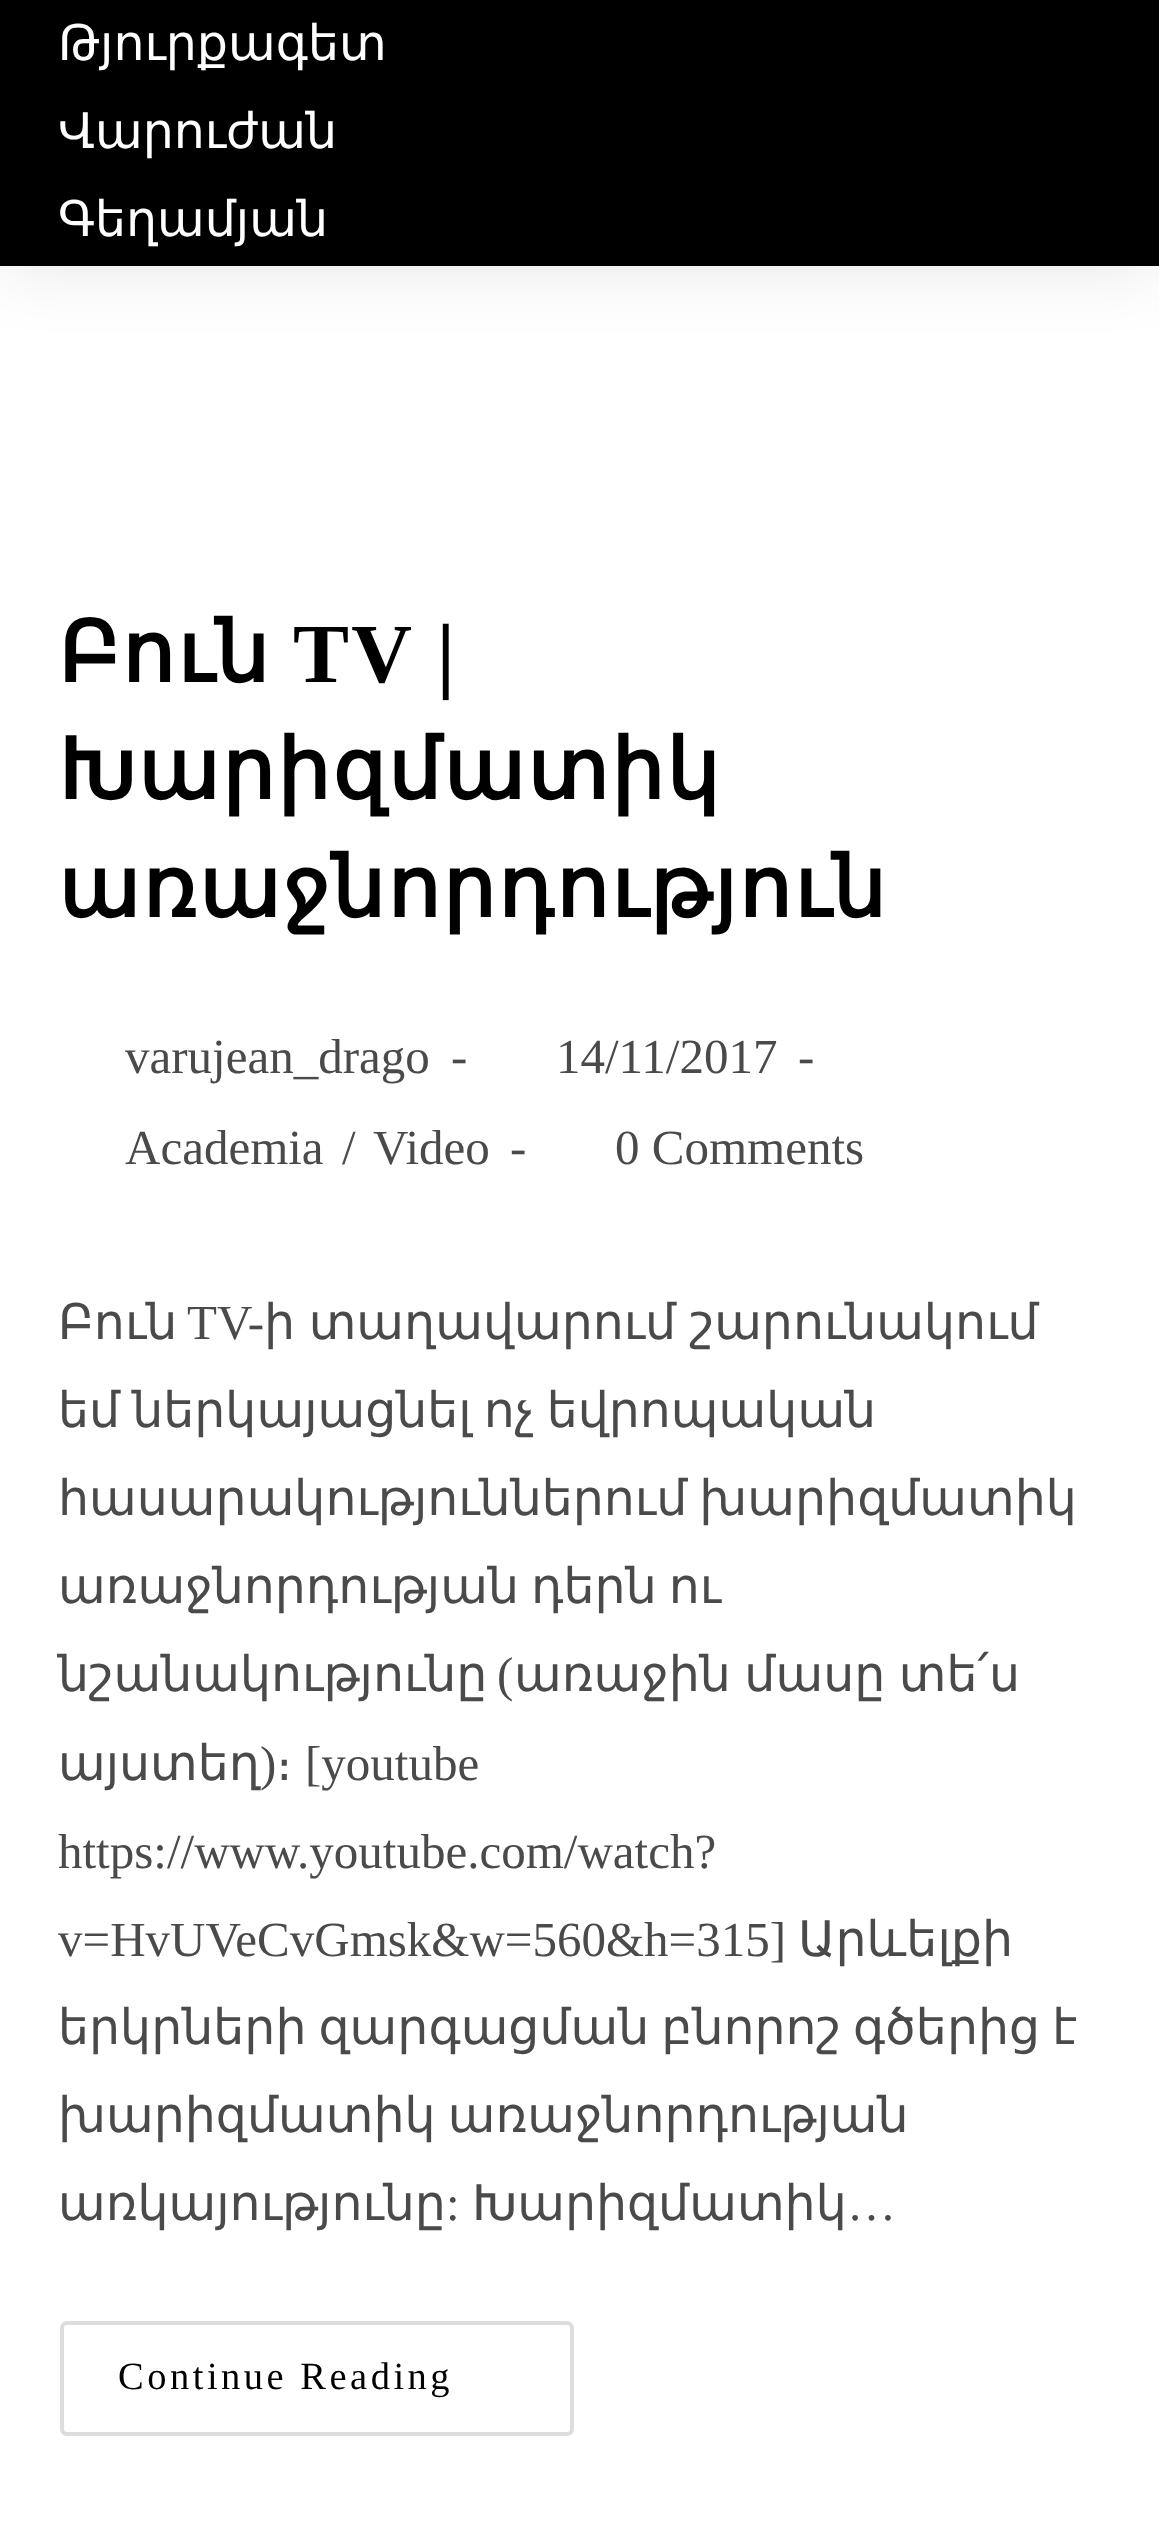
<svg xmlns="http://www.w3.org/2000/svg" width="1159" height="2526">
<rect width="100%" height="100%" fill="#fff"/>
<rect width="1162" height="266" fill="#0000001a" filter="blur(35px)"/>
<rect width="1159" height="266" fill="#000"/>
<text x="58" y="60" style="font-family:DejaVu Sans;font-size:49px;fill:#fff">Թյուրքագետ</text>
<text x="58" y="148" style="font-family:DejaVu Sans;font-size:49px;fill:#fff">Վարուժան</text>
<text x="58" y="236" style="font-family:DejaVu Sans;font-size:49px;fill:#fff">Գեղամյան</text>
<text x="58" y="682" style="font-family:DejaVu Sans;font-size:84px;font-weight:bold;letter-spacing:2.1px;fill:#000">Բուն</text>
<text x="293" y="682" word-spacing="1" style="font-family:Liberation Serif;font-size:84px;font-weight:bold;letter-spacing:2.1px;fill:#000">TV |</text>
<text x="58" y="799" style="font-family:DejaVu Sans;font-size:84px;font-weight:bold;letter-spacing:2.1px;fill:#000">Խարիզմատիկ</text>
<text x="58" y="917" style="font-family:DejaVu Sans;font-size:84px;font-weight:bold;letter-spacing:2.1px;fill:#000">առաջնորդություն</text>
<text x="125" y="1073" style="font-family:Liberation Serif;font-size:49px;fill:#4a4a4a">varujean_drago</text>
<text x="451" y="1073" style="font-family:Liberation Serif;font-size:49px;fill:#4a4a4a">-</text>
<text x="556" y="1073" style="font-family:Liberation Serif;font-size:49px;fill:#4a4a4a">14/11/2017</text>
<text x="798" y="1073" style="font-family:Liberation Serif;font-size:49px;fill:#4a4a4a">-</text>
<text x="125" y="1164" style="font-family:Liberation Serif;font-size:49px;fill:#4a4a4a">Academia</text>
<text x="342" y="1164" style="font-family:Liberation Serif;font-size:49px;fill:#4a4a4a">/</text>
<text x="373" y="1164" style="font-family:Liberation Serif;font-size:49px;fill:#4a4a4a">Video</text>
<text x="510" y="1164" style="font-family:Liberation Serif;font-size:49px;fill:#4a4a4a">-</text>
<text x="615" y="1164" style="font-family:Liberation Serif;font-size:49px;fill:#4a4a4a">0 Comments</text>
<text x="58" y="1339" style="font-family:DejaVu Sans;font-size:49px;fill:#4a4a4a">Բուն</text>
<text x="187" y="1339" style="font-family:Liberation Serif;font-size:49px;fill:#4a4a4a">TV-</text>
<text x="264" y="1339" word-spacing="-2" style="font-family:DejaVu Sans;font-size:49px;fill:#4a4a4a">ի տաղավարում շարունակում</text>
<text x="58" y="1427" word-spacing="-3.5" style="font-family:DejaVu Sans;font-size:49px;fill:#4a4a4a">եմ ներկայացնել ոչ եվրոպական</text>
<text x="58" y="1515" word-spacing="-3.5" style="font-family:DejaVu Sans;font-size:49px;fill:#4a4a4a">հասարակություններում խարիզմատիկ</text>
<text x="58" y="1603" word-spacing="-3.5" style="font-family:DejaVu Sans;font-size:49px;fill:#4a4a4a">առաջնորդության դերն ու</text>
<text x="58" y="1691" style="font-family:DejaVu Sans;font-size:49px;fill:#4a4a4a">նշանակությունը</text>
<text x="497" y="1691" style="font-family:Liberation Serif;font-size:49px;fill:#4a4a4a">(</text>
<text x="514" y="1691" word-spacing="-2" style="font-family:DejaVu Sans;font-size:49px;fill:#4a4a4a">առաջին մասը տե՛ս</text>
<text x="58" y="1780" style="font-family:DejaVu Sans;font-size:49px;fill:#4a4a4a">այստեղ</text>
<text x="260" y="1780" style="font-family:Liberation Serif;font-size:49px;fill:#4a4a4a">)</text>
<text x="276" y="1780" style="font-family:DejaVu Sans;font-size:49px;fill:#4a4a4a">։</text>
<text x="305" y="1780" style="font-family:Liberation Serif;font-size:49px;fill:#4a4a4a">[youtube</text>
<text x="58" y="1868" style="font-family:Liberation Serif;font-size:49px;fill:#4a4a4a">https://www.youtube.com/watch?</text>
<text x="58" y="1956" style="font-family:Liberation Serif;font-size:49px;fill:#4a4a4a">v=HvUVeCvGmsk&amp;w=560&amp;h=315]</text>
<text x="798" y="1956" style="font-family:DejaVu Sans;font-size:49px;fill:#4a4a4a">Արևելքի</text>
<text x="58" y="2044" word-spacing="-3.5" style="font-family:DejaVu Sans;font-size:49px;fill:#4a4a4a">երկրների զարգացման բնորոշ գծերից է</text>
<text x="58" y="2132" word-spacing="-3.5" style="font-family:DejaVu Sans;font-size:49px;fill:#4a4a4a">խարիզմատիկ առաջնորդության</text>
<text x="58" y="2220" style="font-family:DejaVu Sans;font-size:49px;fill:#4a4a4a">առկայությունը</text>
<text x="446" y="2220" style="font-family:Liberation Serif;font-size:49px;fill:#4a4a4a">:</text>
<text x="472" y="2220" style="font-family:DejaVu Sans;font-size:49px;fill:#4a4a4a">Խարիզմատիկ</text>
<text x="847" y="2220" style="font-family:Liberation Serif;font-size:49px;fill:#4a4a4a">…</text>
<rect x="62" y="2323" width="510" height="111" rx="5" fill="none" stroke="#ddd" stroke-width="4"/>
<text x="118" y="2389" style="font-family:Liberation Serif;font-size:38.5px;letter-spacing:3.5px;fill:#000">Continue Reading</text>
</svg>
